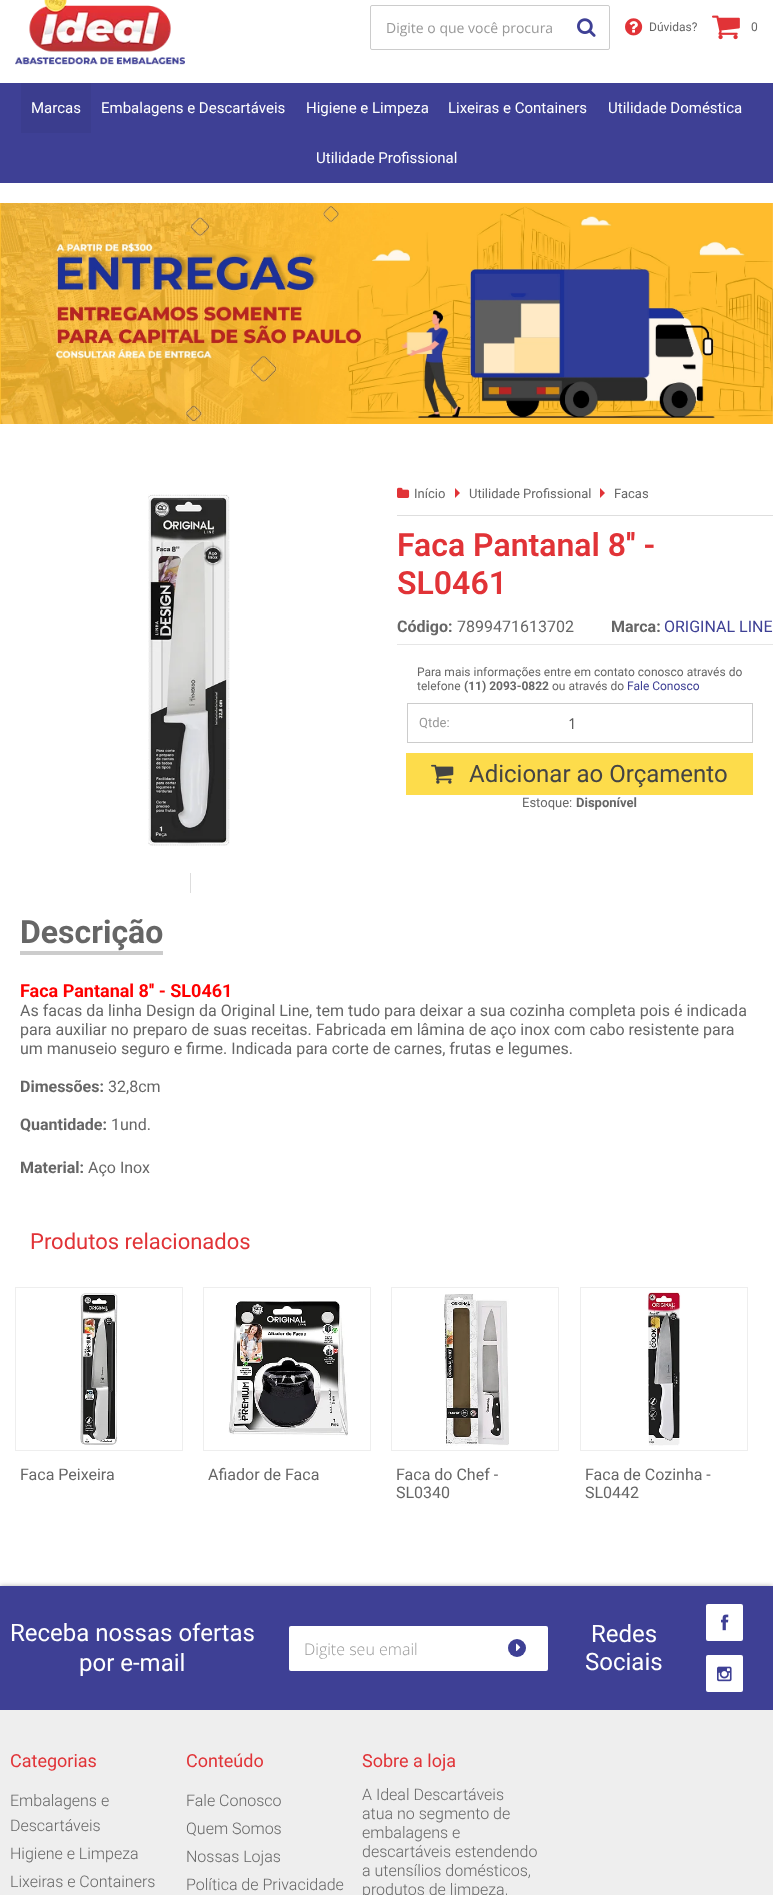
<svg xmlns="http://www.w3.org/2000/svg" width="773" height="1895">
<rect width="100%" height="100%" fill="#fff"/>
<image x="15" y="0" width="170" height="65" href="media/1.png"/>
<rect x="370.5" y="5.5" width="239" height="44" rx="1.5" fill="none" stroke="#ccc"/>
<text x="386" y="33" style="font-family:Open Sans;font-size:14px;fill:#999">Digite o que você procura</text>
<image x="577" y="18" width="19" height="19" href="media/2.png"/>
<image x="625" y="18" width="18" height="18" href="media/3.png"/>
<text x="649" y="31" style="font-family:Roboto;font-size:12px;fill:#666">Dúvidas?</text>
<image x="712" y="15" width="28" height="25" href="media/4.png"/>
<text x="751" y="31" style="font-family:Roboto;font-size:12px;fill:#666">0</text>
<rect y="83" width="773" height="100" fill="#3e4095"/>
<rect x="21" y="83" width="70" height="50" fill="#3b3d8e"/>
<text x="31" y="113" style="font-family:Roboto;font-size:15px;fill:#fff">Marcas</text>
<text x="101" y="113" style="font-family:Roboto;font-size:15px;fill:#fff">Embalagens e Descartáveis</text>
<text x="306" y="113" style="font-family:Roboto;font-size:15px;fill:#fff">Higiene e Limpeza</text>
<text x="448" y="113" style="font-family:Roboto;font-size:15px;fill:#fff">Lixeiras e Containers</text>
<text x="608" y="113" style="font-family:Roboto;font-size:15px;fill:#fff">Utilidade Doméstica</text>
<text x="316" y="163" style="font-family:Roboto;font-size:15px;fill:#fff">Utilidade Profissional</text>
<image x="0" y="203" width="773" height="221" href="media/5.png"/>
<image x="148" y="494" width="82" height="352" href="media/6.png"/>
<rect x="190" y="873" width="1" height="20" fill="#ddd"/>
<image x="397" y="487" width="13" height="11" href="media/7.png"/>
<text x="414" y="498" style="font-family:Roboto;font-size:13px;fill:#666">Início</text>
<path d="M455 498v-10l5 5z" fill="#e13337"/>
<text x="469" y="498" style="font-family:Roboto;font-size:13px;fill:#666">Utilidade Profissional</text>
<path d="M600 498v-10l5 5z" fill="#e13337"/>
<text x="614" y="498" style="font-family:Roboto;font-size:13px;fill:#666">Facas</text>
<rect x="397" y="515" width="376" height="1" fill="#dedede"/>
<text x="397" y="556" style="font-family:Roboto;font-size:32px;font-weight:600;fill:#e13337">Faca Pantanal 8'' -</text>
<text x="397" y="594" style="font-family:Roboto;font-size:32px;font-weight:600;fill:#e13337">SL0461</text>
<rect x="397" y="644" width="376" height="1" fill="#e6e6e6"/>
<text x="397" y="632" style="font-family:Roboto;font-size:16px;font-weight:bold;fill:#666">Código:</text>
<text x="457" y="632" style="font-family:Roboto;font-size:16px;fill:#666">7899471613702</text>
<text x="611" y="632" style="font-family:Roboto;font-size:16px;font-weight:bold;fill:#666">Marca:</text>
<text x="664" y="632" style="font-family:Roboto;font-size:16px;fill:#3e4095">ORIGINAL LINE</text>
<text x="417" y="676" style="font-family:Roboto;font-size:12px;fill:#666">Para mais informações entre em contato conosco através do</text>
<text x="417" y="690" style="font-family:Roboto;font-size:12px;fill:#666">telefone</text>
<text x="464" y="690" style="font-family:Roboto;font-size:12px;font-weight:bold;fill:#666">(11) 2093-0822</text>
<text x="552" y="690" style="font-family:Roboto;font-size:12px;fill:#666">ou através do</text>
<text x="627" y="690" style="font-family:Roboto;font-size:12px;fill:#3e4095">Fale Conosco</text>
<rect x="407.5" y="703.5" width="345" height="39" fill="none" stroke="#ccc"/>
<text x="419" y="727" style="font-family:Roboto;font-size:13px;fill:#999">Qtde:</text>
<text x="568" y="729" style="font-family:Open Sans;font-size:15px;fill:#555">1</text>
<rect x="406" y="753" width="347" height="42" fill="#fddc4b"/>
<image x="431" y="764" width="23" height="20" href="media/8.png"/>
<text x="469" y="782" style="font-family:Roboto;font-size:24px;fill:#444">Adicionar ao Orçamento</text>
<text x="522" y="807" style="font-family:Roboto;font-size:13px;fill:#666">Estoque:</text>
<text x="576" y="807" style="font-family:Roboto;font-size:13px;font-weight:bold;fill:#666">Disponível</text>
<rect x="20" y="951" width="143" height="4" fill="#ccc"/>
<text x="20" y="943" style="font-family:Roboto;font-size:32px;font-weight:bold;fill:#666">Descrição</text>
<text x="20" y="997" style="font-family:Roboto;font-size:18px;font-weight:bold;fill:#f00">Faca Pantanal 8'' - SL0461</text>
<text x="20" y="1016" style="font-family:Roboto;font-size:16px;fill:#666">As facas da linha Design da Original Line, tem tudo para deixar a sua cozinha completa pois é indicada</text>
<text x="20" y="1035" style="font-family:Roboto;font-size:16px;fill:#666">para auxiliar no preparo de suas receitas. Fabricada em lâmina de aço inox com cabo resistente para</text>
<text x="20" y="1054" style="font-family:Roboto;font-size:16px;fill:#666">um manuseio seguro e firme. Indicada para corte de carnes, frutas e legumes.</text>
<text x="20" y="1092" style="font-family:Roboto;font-size:16px;font-weight:bold;fill:#666">Dimessões:</text>
<text x="108" y="1092" style="font-family:Roboto;font-size:16px;fill:#666">32,8cm</text>
<text x="20" y="1130" style="font-family:Roboto;font-size:16px;font-weight:bold;fill:#666">Quantidade:</text>
<text x="111" y="1130" style="font-family:Roboto;font-size:16px;fill:#666">1und.</text>
<text x="20" y="1173" style="font-family:Roboto;font-size:16px;font-weight:bold;fill:#666">Material:</text>
<text x="88" y="1173" style="font-family:Roboto;font-size:16px;fill:#666">Aço Inox</text>
<text x="30" y="1249" style="font-family:Roboto;font-size:22px;fill:#e13337">Produtos relacionados</text>
<rect x="15.5" y="1287.5" width="167" height="163" fill="none" stroke="#eee"/>
<image x="80" y="1293" width="38" height="152" href="media/9.png"/>
<text x="20" y="1480" style="font-family:Roboto;font-size:16px;fill:#666">Faca Peixeira</text>
<rect x="203.5" y="1287.5" width="167" height="163" fill="none" stroke="#eee"/>
<image x="228" y="1301" width="120" height="135" href="media/10.png"/>
<text x="208" y="1480" style="font-family:Roboto;font-size:16px;fill:#666">Afiador de Faca</text>
<rect x="391.5" y="1287.5" width="167" height="163" fill="none" stroke="#eee"/>
<image x="444" y="1294" width="65" height="152" href="media/11.png"/>
<text x="396" y="1480" style="font-family:Roboto;font-size:16px;fill:#666">Faca do Chef -</text>
<text x="396" y="1498" style="font-family:Roboto;font-size:16px;fill:#666">SL0340</text>
<rect x="580.5" y="1287.5" width="167" height="163" fill="none" stroke="#eee"/>
<image x="647" y="1292" width="34" height="154" href="media/12.png"/>
<text x="585" y="1480" style="font-family:Roboto;font-size:16px;fill:#666">Faca de Cozinha -</text>
<text x="585" y="1498" style="font-family:Roboto;font-size:16px;fill:#666">SL0442</text>
<rect y="1586" width="773" height="124" fill="#0000004d" filter="blur(2.5px)"/>
<rect y="1586" width="773" height="124" fill="#3e4095"/>
<text x="10" y="1641" style="font-family:Roboto;font-size:24px;fill:#fff">Receba nossas ofertas</text>
<text x="79" y="1671" style="font-family:Roboto;font-size:24px;fill:#fff">por e-mail</text>
<rect x="289" y="1626" width="259" height="45" rx="2" fill="#fff"/>
<text x="304" y="1655" style="font-family:Open Sans;font-size:16px;font-weight:300;fill:#999">Digite seu email</text>
<circle cx="517" cy="1648" r="9" fill="#3e4095"/>
<image x="516" y="1643" width="5" height="8" href="media/13.png"/>
<text x="591" y="1642" style="font-family:Roboto;font-size:24px;fill:#fff">Redes</text>
<text x="585" y="1670" style="font-family:Roboto;font-size:24px;fill:#fff">Sociais</text>
<rect x="706" y="1604" width="37" height="37" rx="2" fill="#fff"/>
<image x="721" y="1614" width="8" height="17" href="media/14.png"/>
<rect x="706" y="1655" width="37" height="37" rx="2" fill="#fff"/>
<image x="717" y="1666" width="15" height="16" href="media/15.png"/>
<rect y="1710" width="773" height="185" fill="#eee"/>
<text x="10" y="1767" style="font-family:Roboto;font-size:18px;fill:#e13337">Categorias</text>
<text x="10" y="1806" style="font-family:Roboto;font-size:16px;font-weight:300;fill:#666">Embalagens e</text>
<text x="10" y="1831" style="font-family:Roboto;font-size:16px;font-weight:300;fill:#666">Descartáveis</text>
<text x="10" y="1859" style="font-family:Roboto;font-size:16px;font-weight:300;fill:#666">Higiene e Limpeza</text>
<text x="10" y="1887" style="font-family:Roboto;font-size:16px;font-weight:300;fill:#666">Lixeiras e Containers</text>
<text x="186" y="1767" style="font-family:Roboto;font-size:18px;fill:#e13337">Conteúdo</text>
<text x="186" y="1806" style="font-family:Roboto;font-size:16px;font-weight:300;fill:#666">Fale Conosco</text>
<text x="186" y="1834" style="font-family:Roboto;font-size:16px;font-weight:300;fill:#666">Quem Somos</text>
<text x="186" y="1862" style="font-family:Roboto;font-size:16px;font-weight:300;fill:#666">Nossas Lojas</text>
<text x="186" y="1890" style="font-family:Roboto;font-size:16px;font-weight:300;fill:#666">Política de Privacidade</text>
<text x="362" y="1767" style="font-family:Roboto;font-size:18px;fill:#e13337">Sobre a loja</text>
<text x="362" y="1800" style="font-family:Roboto;font-size:16px;font-weight:300;fill:#666">A Ideal Descartáveis</text>
<text x="362" y="1819" style="font-family:Roboto;font-size:16px;font-weight:300;fill:#666">atua no segmento de</text>
<text x="362" y="1838" style="font-family:Roboto;font-size:16px;font-weight:300;fill:#666">embalagens e</text>
<text x="362" y="1857" style="font-family:Roboto;font-size:16px;font-weight:300;fill:#666">descartáveis estendendo</text>
<text x="362" y="1876" style="font-family:Roboto;font-size:16px;font-weight:300;fill:#666">a utensílios domésticos,</text>
<text x="362" y="1895" style="font-family:Roboto;font-size:16px;font-weight:300;fill:#666">produtos de limpeza,</text>
</svg>
